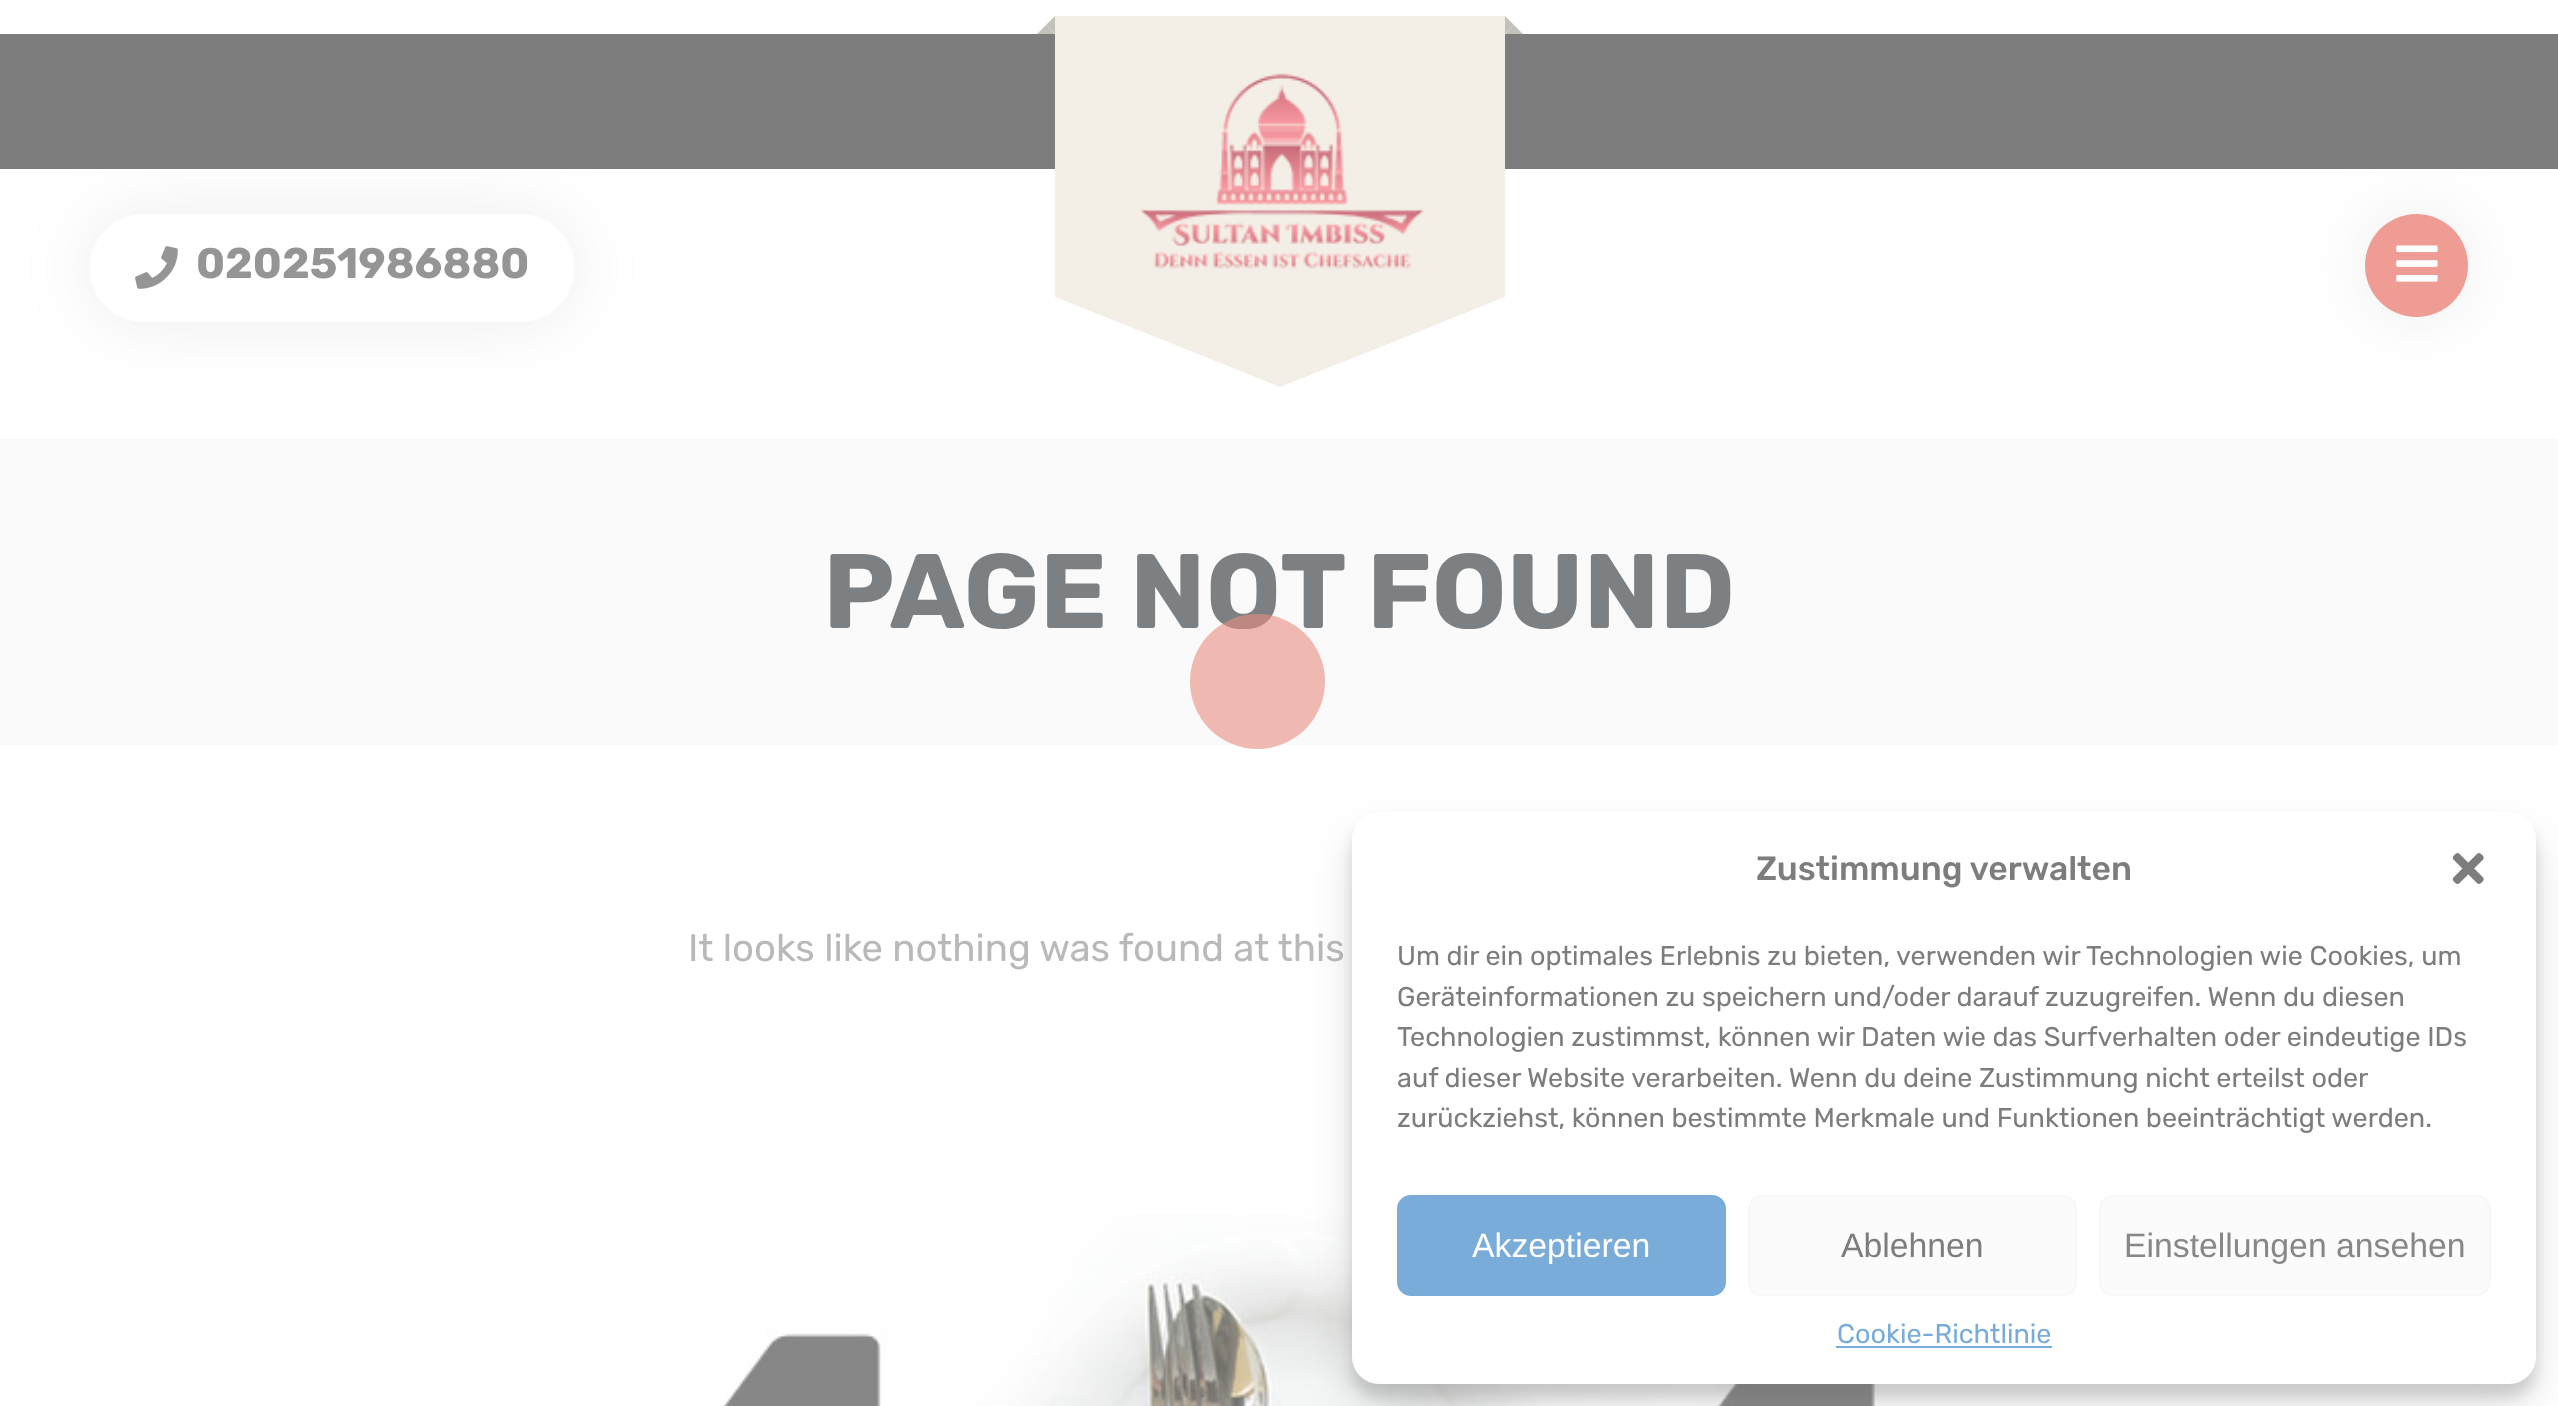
<svg xmlns="http://www.w3.org/2000/svg" width="2558" height="1406">
<rect width="100%" height="100%" fill="#fff"/>
<rect x="90" y="214" width="484" height="108" rx="54" fill="#6969691f" filter="blur(34px)"/>
<rect x="2365" y="214" width="103" height="103" rx="51.5" fill="#6969691f" filter="blur(34px)"/>
<rect y="34" width="2558" height="135" fill="#7d7d7d"/>
<rect x="1055" y="16" width="450" height="281" fill="#f3efe6"/>
<path d="M1055 16v18l-9-9z" fill="#c4c1bb"/>
<path d="M1055 34h-18l9-9z" fill="#c4c1bb"/>
<path d="M1523 34h-18l9-9z" fill="#c4c1bb"/>
<path d="M1505 34v-18l9 9z" fill="#c4c1bb"/>
<image x="1140" y="73" width="284" height="196" href="media/1.png"/>
<path d="M1055 297h225l-112 45z" fill="#f3efe6"/>
<path d="M1280 297v90l-112-45z" fill="#f3efe6"/>
<path d="M1280 297h225l-112 45z" fill="#f3efe6"/>
<path d="M1280 387v-90l113 45z" fill="#f3efe6"/>
<rect x="90" y="214" width="484" height="108" rx="54" fill="#fff"/>
<image x="135" y="246" width="43" height="43" href="media/2.png"/>
<text x="196" y="278" style="font-family:Rubik;font-size:42.75px;font-weight:bold;fill:#959595">020251986880</text>
<circle cx="2416.5" cy="265.5" r="51.5" fill="#ef9c95"/>
<image x="2396" y="245" width="42" height="37" href="media/3.png"/>
<rect y="439" width="2558" height="306" fill="#fafafa"/>
<text x="823" y="628" style="font-family:Rubik;font-size:105.75px;font-weight:bold;fill:#7d8083">PAGE NOT FOUND</text>
<text x="688" y="961" style="font-family:Rubik;font-size:38.25px;fill:#b9b9b9">It looks like nothing was found at this</text>
<image x="722" y="1212" width="1153" height="194" href="media/4.png"/>
<circle cx="1257.5" cy="681.5" r="67.5" fill="#ebe4d45e"/>
<circle cx="1257.5" cy="681.5" r="67.5" fill="#e4584b5e"/>
<rect x="1352" y="826" width="1184" height="571" rx="27" fill="#6969693b" filter="blur(7px)"/>
<rect x="1352" y="835" width="1184" height="571" rx="27" fill="#69696930" filter="blur(22.5px)"/>
<rect x="1352" y="812" width="1184" height="572" rx="27" fill="#fff"/>
<text x="1756" y="880" style="font-family:Rubik;font-size:33.75px;font-weight:500;fill:#7d7d7d">Zustimmung verwalten</text>
<image x="2452" y="853" width="32" height="31" href="media/5.png"/>
<text x="1397" y="965" style="font-family:Rubik;font-size:27px;fill:#7d7d7d">Um dir ein optimales Erlebnis zu bieten, verwenden wir Technologien wie Cookies, um</text>
<text x="1397" y="1006" style="font-family:Rubik;font-size:27px;fill:#7d7d7d">Geräteinformationen zu speichern und/oder darauf zuzugreifen. Wenn du diesen</text>
<text x="1397" y="1046" style="font-family:Rubik;font-size:27px;fill:#7d7d7d">Technologien zustimmst, können wir Daten wie das Surfverhalten oder eindeutige IDs</text>
<text x="1397" y="1087" style="font-family:Rubik;font-size:27px;fill:#7d7d7d">auf dieser Website verarbeiten. Wenn du deine Zustimmung nicht erteilst oder</text>
<text x="1397" y="1127" style="font-family:Rubik;font-size:27px;fill:#7d7d7d">zurückziehst, können bestimmte Merkmale und Funktionen beeinträchtigt werden.</text>
<rect x="1398" y="1196" width="327" height="99" rx="13" fill="#7aacd9" stroke="#7aacd9" stroke-width="2"/>
<text x="1472" y="1257" style="font-family:Liberation Sans;font-size:33.75px;fill:#fff">Akzeptieren</text>
<rect x="1749" y="1196" width="327" height="99" rx="13" fill="#fbfbfb" stroke="#f7f7f7" stroke-width="2"/>
<text x="1841" y="1257" style="font-family:Liberation Sans;font-size:33.75px;fill:#7d7d7d">Ablehnen</text>
<rect x="2100" y="1196" width="390" height="99" rx="13" fill="#fbfbfb" stroke="#f7f7f7" stroke-width="2"/>
<text x="2124" y="1257" style="font-family:Liberation Sans;font-size:33.75px;fill:#878787">Einstellungen ansehen</text>
<text x="1837" y="1343" style="font-family:Rubik;font-size:27px;fill:#7aacd9">Cookie-Richtlinie</text>
<rect x="1836" y="1346" width="216" height="2" fill="#7aacd9"/>
</svg>
